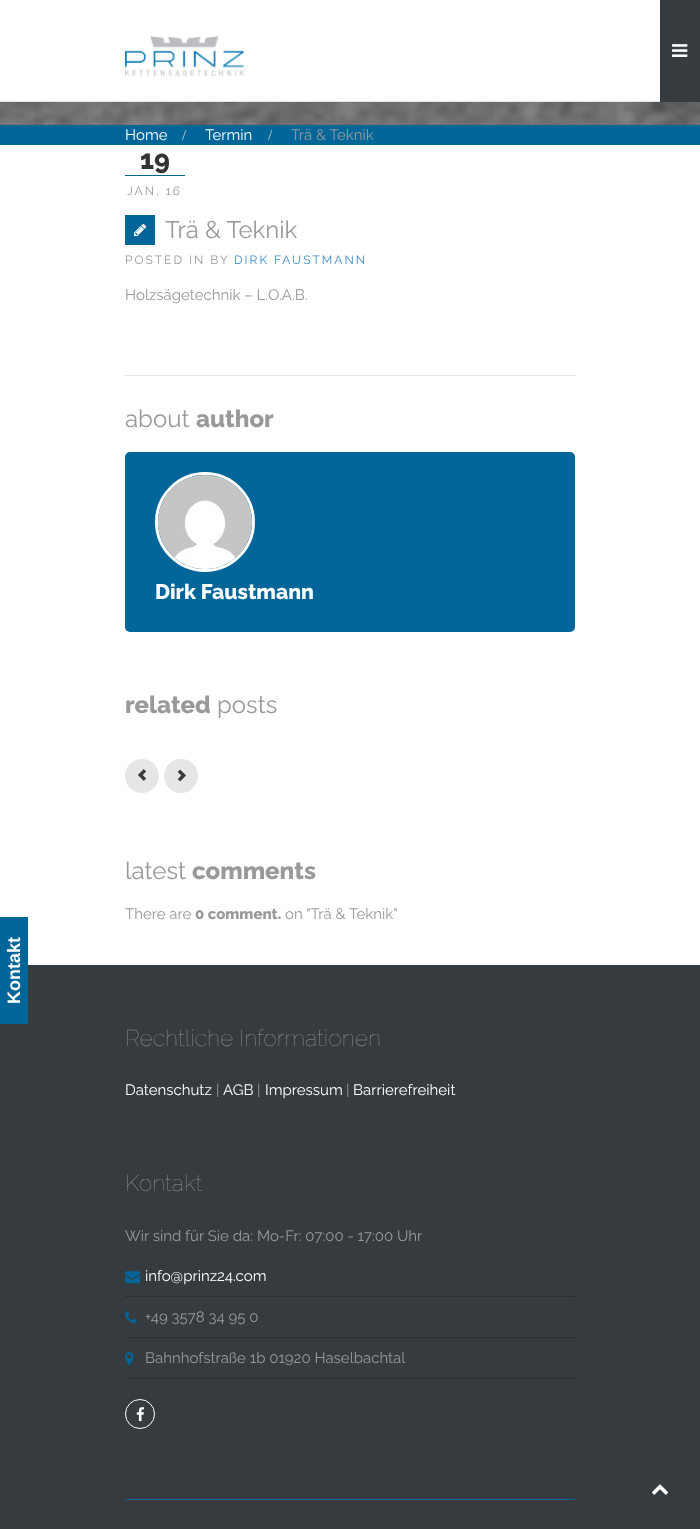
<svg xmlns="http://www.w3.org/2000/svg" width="700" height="1529">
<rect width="100%" height="100%" fill="#fff"/>
<rect y="101" width="660" height="1" fill="#e5e5e5"/>
<image x="125" y="36" width="120" height="40" href="media/1.png"/>
<rect x="660" width="40" height="102" fill="#363b3f"/>
<image x="672" y="44" width="16" height="13" href="media/2.png"/>
<image x="0" y="102" width="700" height="23" href="media/3.png"/>
<rect y="125" width="700" height="20" fill="#069"/>
<text x="125" y="140" style="font-family:Raleway;font-size:15px;fill:#fff">Home</text>
<text x="182" y="140" style="font-family:Liberation Serif;font-size:15px;fill:#ccc">/</text>
<text x="205" y="140" style="font-family:Raleway;font-size:15px;fill:#fff">Termin</text>
<text x="268" y="140" style="font-family:Liberation Serif;font-size:15px;fill:#ccc">/</text>
<text x="291" y="140" style="font-family:Raleway;font-size:15px;fill:#999">Trä &amp; Teknik</text>
<rect x="125" y="375" width="450" height="1" fill="#e5e5e5"/>
<text x="140" y="169" style="font-family:Raleway;font-size:27px;font-weight:800;fill:#333">19</text>
<rect x="125" y="175" width="60" height="1" fill="#069"/>
<text x="127" y="195" style="font-family:Raleway;font-size:12px;letter-spacing:2px;fill:#999">JAN, 16</text>
<rect x="125" y="215" width="30" height="30" fill="#069"/>
<image x="134" y="223" width="13" height="13" href="media/4.png"/>
<text x="165" y="238" style="font-family:Raleway;font-size:24px;fill:#999">Trä &amp; Teknik</text>
<text x="125" y="264" style="font-family:Raleway;font-size:12px;letter-spacing:2px;fill:#999">POSTED IN BY</text>
<text x="234" y="264" style="font-family:Raleway;font-size:12px;letter-spacing:2px;fill:#428bca">DIRK FAUSTMANN</text>
<text x="125" y="300" style="font-family:Raleway;font-size:15px;fill:#999">Holzsägetechnik – L.O.A.B.</text>
<text x="125" y="427" style="font-family:Raleway;font-size:24px;fill:#999">about</text>
<text x="196" y="427" style="font-family:Raleway;font-size:24px;font-weight:800;fill:#999">author</text>
<rect x="125" y="452" width="450" height="180" rx="5" fill="#069"/>
<circle cx="205" cy="522" r="48.5" fill="none" stroke="#fff" stroke-width="3"/>
<image x="158" y="475" width="94" height="94" href="media/5.png"/>
<text x="155" y="599" style="font-family:Raleway;font-size:21px;font-weight:800;fill:#fff">Dirk Faustmann</text>
<text x="125" y="713" style="font-family:Raleway;font-size:24px;font-weight:800;fill:#999">related</text>
<text x="217" y="713" style="font-family:Raleway;font-size:24px;fill:#999">posts</text>
<circle cx="142" cy="776" r="17" fill="#e6e6e6"/>
<image x="138" y="769" width="9" height="12" href="media/6.png"/>
<circle cx="181" cy="776" r="17" fill="#e6e6e6"/>
<image x="177" y="769" width="9" height="13" href="media/7.png"/>
<text x="125" y="879" style="font-family:Raleway;font-size:24px;fill:#999">latest</text>
<text x="192" y="879" style="font-family:Raleway;font-size:24px;font-weight:800;fill:#999">comments</text>
<text x="125" y="919" style="font-family:Raleway;font-size:15px;fill:#999">There are</text>
<text x="195" y="919" style="font-family:Raleway;font-size:15px;font-weight:800;fill:#999">0 comment.</text>
<text x="285" y="919" style="font-family:Raleway;font-size:15px;fill:#999">on "Trä &amp; Teknik"</text>
<rect y="965" width="700" height="564" fill="#363b3f"/>
<rect y="917" width="28" height="107" fill="#069"/>
<text x="20" y="1004" transform="rotate(-90 20 1004)" style="font-family:Liberation Sans;font-size:18px;font-weight:bold;fill:#fff">Kontakt</text>
<text x="125" y="1046" style="font-family:Raleway;font-size:23px;font-weight:100;fill:#999">Rechtliche Informationen</text>
<text x="125" y="1095" style="font-family:Raleway;font-size:15px;fill:#fff">Datenschutz</text>
<text x="216" y="1095" style="font-family:Raleway;font-size:15px;fill:#999">|</text>
<text x="223" y="1095" style="font-family:Raleway;font-size:15px;fill:#fff">AGB</text>
<text x="257" y="1095" style="font-family:Raleway;font-size:15px;fill:#999">|</text>
<text x="265" y="1095" style="font-family:Raleway;font-size:15px;fill:#fff">Impressum</text>
<text x="346" y="1095" style="font-family:Raleway;font-size:15px;fill:#999">|</text>
<text x="353" y="1095" style="font-family:Raleway;font-size:15px;fill:#fff">Barrierefreiheit</text>
<text x="125" y="1191" style="font-family:Raleway;font-size:23px;font-weight:100;fill:#999">Kontakt</text>
<text x="125" y="1241" style="font-family:Raleway;font-size:15px;fill:#999">Wir sind für Sie da: Mo-Fr: 07:00 - 17:00 Uhr</text>
<rect x="125" y="1296" width="450" height="1" fill="#2b2f32"/>
<image x="125" y="1271" width="15" height="13" href="media/8.png"/>
<text x="145" y="1281" style="font-family:Raleway;font-size:15px;fill:#fff">info@prinz24.com</text>
<rect x="125" y="1337" width="450" height="1" fill="#2b2f32"/>
<image x="125" y="1311" width="12" height="12" href="media/9.png"/>
<text x="145" y="1322" style="font-family:Raleway;font-size:15px;fill:#999">+49 3578 34 95 0</text>
<rect x="125" y="1378" width="450" height="1" fill="#2b2f32"/>
<image x="125" y="1352" width="9" height="13" href="media/10.png"/>
<text x="145" y="1363" style="font-family:Raleway;font-size:15px;fill:#999">Bahnhofstraße 1b 01920 Haselbachtal</text>
<circle cx="140" cy="1414" r="14.5" fill="none" stroke="#fff"/>
<image x="136" y="1407" width="9" height="15" href="media/11.png"/>
<rect x="125" y="1499" width="450" height="1" fill="#069"/>
<image x="651" y="1484" width="18" height="11" href="media/12.png"/>
</svg>
